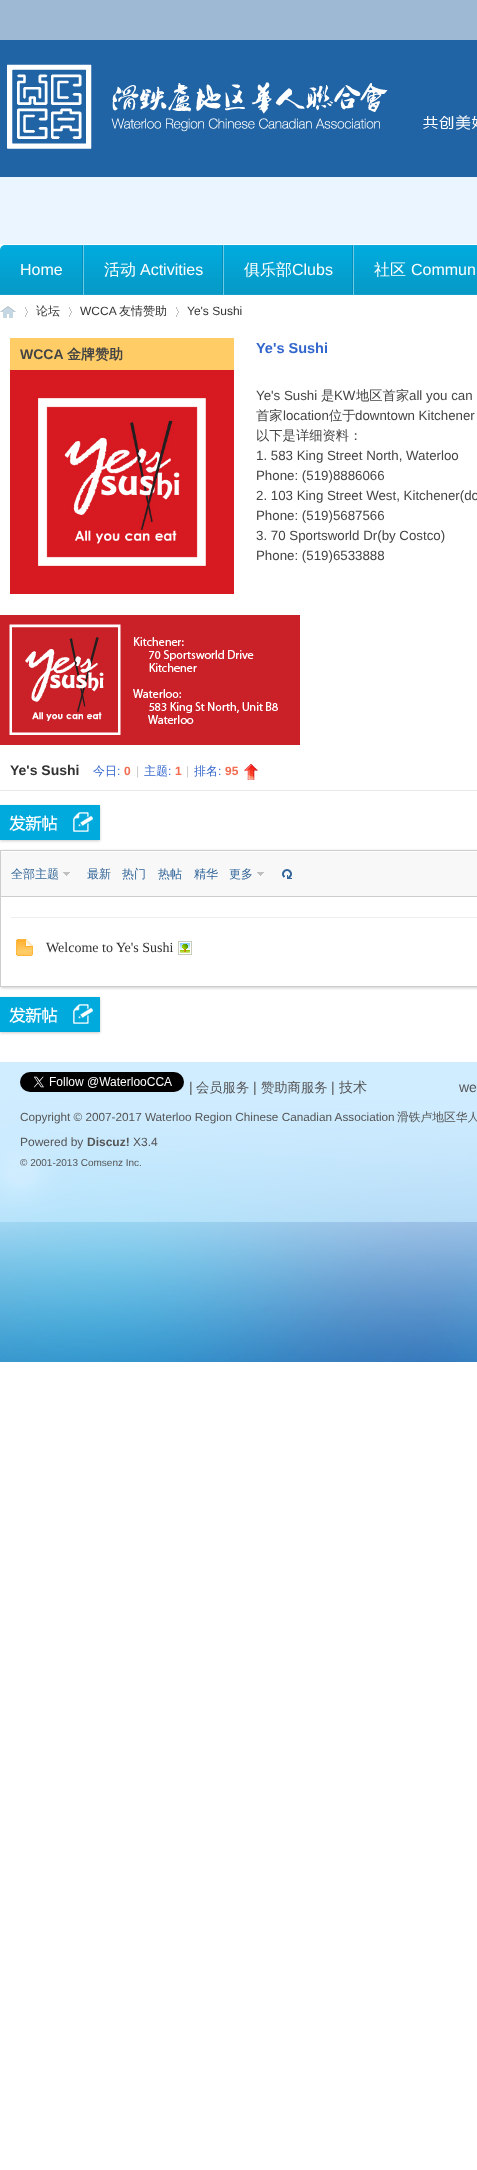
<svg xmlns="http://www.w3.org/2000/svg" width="477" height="2170">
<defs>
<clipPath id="clip1"><path d="M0 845h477v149h-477zm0 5h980v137h-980z" clip-rule="evenodd"/></clipPath>
</defs>
<rect width="100%" height="100%" fill="#fff"/>
<image x="0" y="40" width="477" height="204" href="media/1.png"/>
<rect width="477" height="40" fill="#9eb9d3"/>
<image x="7" y="64" width="470" height="85" href="media/2.png"/>
<image x="0" y="245" width="477" height="50" href="media/3.png"/>
<image x="82" y="245" width="2" height="50" href="media/4.png"/>
<text x="20" y="275" style="font-family:Liberation Sans;font-size:16px;fill:#fff">Home</text>
<image x="222" y="245" width="2" height="50" href="media/4.png"/>
<text x="104" y="275" style="font-family:WenQuanYi Zen Hei;font-size:16px;font-weight:500;fill:#fff">活动</text>
<text x="140" y="275" style="font-family:Liberation Sans;font-size:16px;fill:#fff">Activities</text>
<image x="352" y="245" width="2" height="50" href="media/4.png"/>
<text x="244" y="275" style="font-family:WenQuanYi Zen Hei;font-size:16px;font-weight:500;fill:#fff">俱乐部</text>
<text x="292" y="275" style="font-family:Liberation Sans;font-size:16px;fill:#fff">Clubs</text>
<text x="374" y="275" style="font-family:WenQuanYi Zen Hei;font-size:16px;font-weight:500;fill:#fff">社区</text>
<text x="411" y="275" style="font-family:Liberation Sans;font-size:16px;fill:#fff">Commun</text>
<image x="0" y="306" width="16" height="12" href="media/5.png"/>
<image x="25" y="307" width="3" height="10" href="media/6.png"/>
<text x="36" y="315" style="font-family:WenQuanYi Zen Hei;font-size:12px;font-weight:500;fill:#333">论坛</text>
<image x="69" y="307" width="3" height="10" href="media/6.png"/>
<text x="80" y="315" style="font-family:Liberation Sans;font-size:12px;fill:#333">WCCA</text>
<text x="119" y="315" style="font-family:WenQuanYi Zen Hei;font-size:12px;font-weight:500;fill:#333">友情赞助</text>
<image x="176" y="307" width="3" height="10" href="media/6.png"/>
<text x="187" y="315" style="font-family:Liberation Sans;font-size:12px;fill:#333">Ye's Sushi</text>
<rect x="10" y="338" width="224" height="32" fill="#fc6"/>
<text x="20" y="359" style="font-family:Liberation Sans;font-size:14px;font-weight:bold;fill:#444">WCCA</text>
<text x="67" y="359" style="font-family:WenQuanYi Zen Hei;font-size:14px;font-weight:bold;fill:#444">金牌赞助</text>
<image x="10" y="370" width="224" height="224" href="media/7.png"/>
<text x="256" y="353" style="font-family:Liberation Sans;font-size:14.5px;font-weight:bold;fill:#36c">Ye's Sushi</text>
<text x="256" y="400" style="font-family:Liberation Sans;font-size:13.3px;fill:#444">Ye's Sushi</text>
<text x="321" y="400" style="font-family:WenQuanYi Zen Hei;font-size:13.3px;font-weight:500;fill:#444">是</text>
<text x="334" y="400" style="font-family:Liberation Sans;font-size:13.3px;fill:#444">KW</text>
<text x="356" y="400" style="font-family:WenQuanYi Zen Hei;font-size:13.3px;font-weight:500;fill:#444">地区首家</text>
<text x="409" y="400" style="font-family:Liberation Sans;font-size:13.3px;fill:#444">all you can</text>
<text x="256" y="420" style="font-family:WenQuanYi Zen Hei;font-size:13.3px;font-weight:500;fill:#444">首家</text>
<text x="283" y="420" style="font-family:Liberation Sans;font-size:13.3px;fill:#444">location</text>
<text x="329" y="420" style="font-family:WenQuanYi Zen Hei;font-size:13.3px;font-weight:500;fill:#444">位于</text>
<text x="355" y="420" style="font-family:Liberation Sans;font-size:13.3px;fill:#444">downtown Kitchener</text>
<text x="256" y="440" style="font-family:WenQuanYi Zen Hei;font-size:13.3px;font-weight:500;fill:#444">以下是详细资料：</text>
<text x="256" y="460" style="font-family:Liberation Sans;font-size:13.3px;fill:#444">1. 583 King Street North, Waterloo</text>
<text x="256" y="480" style="font-family:Liberation Sans;font-size:13.3px;fill:#444">Phone: (519)8886066</text>
<text x="256" y="500" style="font-family:Liberation Sans;font-size:13.3px;fill:#444">2. 103 King Street West, Kitchener(do</text>
<text x="256" y="520" style="font-family:Liberation Sans;font-size:13.3px;fill:#444">Phone: (519)5687566</text>
<text x="256" y="540" style="font-family:Liberation Sans;font-size:13.3px;fill:#444">3. 70 Sportsworld Dr(by Costco)</text>
<text x="256" y="560" style="font-family:Liberation Sans;font-size:13.3px;fill:#444">Phone: (519)6533888</text>
<image x="0" y="615" width="300" height="130" href="media/8.png"/>
<rect y="790" width="477" height="1" fill="#e8e8e8"/>
<text x="10" y="775" style="font-family:Liberation Sans;font-size:14px;font-weight:bold;fill:#333">Ye's Sushi</text>
<text x="93" y="775" style="font-family:WenQuanYi Zen Hei;font-size:12px;font-weight:500;fill:#36c">今日</text>
<text x="117" y="775" style="font-family:Liberation Sans;font-size:12px;fill:#36c">:</text>
<text x="124" y="775" style="font-family:Liberation Sans;font-size:12px;font-weight:bold;fill:#f26c4f">0</text>
<text x="136" y="775" style="font-family:Liberation Sans;font-size:12px;fill:#ccc">|</text>
<text x="144" y="775" style="font-family:WenQuanYi Zen Hei;font-size:12px;font-weight:500;fill:#36c">主题</text>
<text x="168" y="775" style="font-family:Liberation Sans;font-size:12px;fill:#36c">:</text>
<text x="175" y="775" style="font-family:Liberation Sans;font-size:12px;font-weight:bold;fill:#f26c4f">1</text>
<text x="186" y="775" style="font-family:Liberation Sans;font-size:12px;fill:#ccc">|</text>
<text x="194" y="775" style="font-family:WenQuanYi Zen Hei;font-size:12px;font-weight:500;fill:#36c">排名</text>
<text x="218" y="775" style="font-family:Liberation Sans;font-size:12px;fill:#36c">:</text>
<text x="225" y="775" style="font-family:Liberation Sans;font-size:12px;font-weight:bold;fill:#f26c4f">95</text>
<image x="244" y="764" width="14" height="16" href="media/9.png"/>
<rect y="806" width="100" height="35" fill="#ccc" filter="blur(1.5px)"/>
<image x="0" y="805" width="100" height="35" href="media/10.png"/>
<g clip-path="url(#clip1)">
<rect x="1" y="851" width="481" height="137" fill="#ccc" filter="blur(1.5px)"/>
</g>
<rect x="0.5" y="850.5" width="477" height="136" fill="none" stroke="#cdcdcd"/>
<rect x="1" y="852" width="476" height="44" fill="#f8f8f8"/>
<rect x="1" y="896" width="476" height="1" fill="#cdcdcd"/>
<text x="11" y="878" style="font-family:WenQuanYi Zen Hei;font-size:12px;font-weight:500;fill:#369">全部主题</text>
<image x="63" y="872" width="7" height="4" href="media/11.png"/>
<text x="87" y="878" style="font-family:WenQuanYi Zen Hei;font-size:12px;font-weight:500;fill:#369">最新</text>
<text x="122" y="878" style="font-family:WenQuanYi Zen Hei;font-size:12px;font-weight:500;fill:#369">热门</text>
<text x="158" y="878" style="font-family:WenQuanYi Zen Hei;font-size:12px;font-weight:500;fill:#369">热帖</text>
<text x="194" y="878" style="font-family:WenQuanYi Zen Hei;font-size:12px;font-weight:500;fill:#369">精华</text>
<text x="229" y="878" style="font-family:WenQuanYi Zen Hei;font-size:12px;font-weight:500;fill:#369">更多</text>
<image x="257" y="872" width="7" height="4" href="media/11.png"/>
<image x="282" y="869" width="10" height="10" href="media/12.png"/>
<rect x="11" y="917" width="466" height="1" fill="#eee"/>
<image x="16" y="939" width="17" height="17" href="media/13.png"/>
<text x="46" y="952" style="font-family:Liberation Serif;font-size:14px;fill:#333">Welcome to Ye's Sushi</text>
<image x="178" y="941" width="14" height="14" href="media/14.png"/>
<rect y="998" width="100" height="35" fill="#ccc" filter="blur(1.5px)"/>
<image x="0" y="997" width="100" height="35" href="media/10.png"/>
<image x="0" y="1062" width="477" height="300" href="media/15.png"/>
<rect y="1062" width="477" height="160" fill="#c4eaffa3"/>
<image x="20" y="1072" width="164" height="20" href="media/16.png"/>
<text x="189" y="1092" style="font-family:Liberation Sans;font-size:14px;fill:#555">|</text>
<text x="196" y="1092" style="font-family:WenQuanYi Zen Hei;font-size:13.3px;font-weight:500;fill:#555">会员服务</text>
<text x="253" y="1092" style="font-family:Liberation Sans;font-size:14px;fill:#555">|</text>
<text x="261" y="1092" style="font-family:WenQuanYi Zen Hei;font-size:13.3px;font-weight:500;fill:#555">赞助商服务</text>
<text x="331" y="1092" style="font-family:Liberation Sans;font-size:14px;fill:#555">|</text>
<text x="339" y="1092" style="font-family:WenQuanYi Zen Hei;font-size:14px;font-weight:500;fill:#555">技术</text>
<text x="459" y="1092" style="font-family:Liberation Sans;font-size:14px;fill:#555">we</text>
<text x="20" y="1121" style="font-family:Liberation Sans;font-size:11.75px;fill:#555">Copyright © 2007-2017 Waterloo Region Chinese Canadian Association</text>
<text x="397" y="1121" style="font-family:WenQuanYi Zen Hei;font-size:11.75px;font-weight:500;fill:#555">滑铁卢地区华人</text>
<text x="20" y="1146" style="font-family:Liberation Sans;font-size:12px;fill:#555">Powered by</text>
<text x="87" y="1146" style="font-family:Liberation Sans;font-size:12px;font-weight:bold;fill:#555">Discuz!</text>
<text x="133" y="1146" style="font-family:Liberation Sans;font-size:12px;fill:#555">X3.4</text>
<text x="20" y="1166" style="font-family:Liberation Sans;font-size:10px;fill:#555">© 2001-2013 Comsenz Inc.</text>
</svg>
